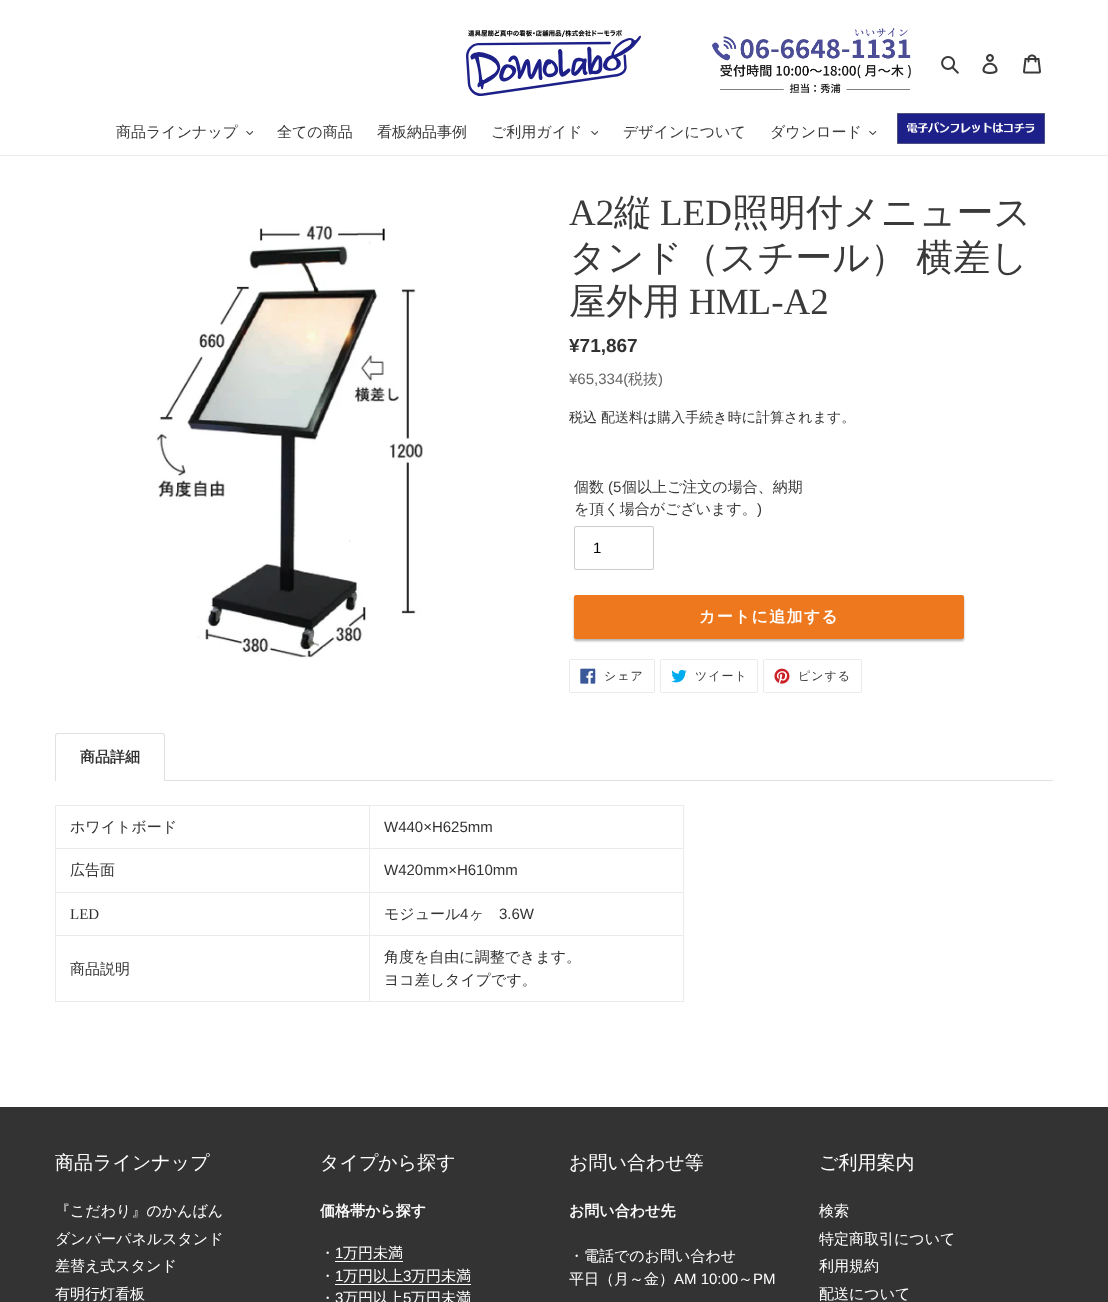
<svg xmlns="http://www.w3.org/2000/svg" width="1108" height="1302">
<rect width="100%" height="100%" fill="#fff"/>
<image x="712" y="28" width="199" height="65" href="media/1.png"/>
<image x="466" y="30" width="175" height="66" href="media/2.png"/>
<image x="941" y="56" width="18" height="18" href="media/3.png"/>
<image x="982" y="54" width="16" height="20" href="media/4.png"/>
<image x="1023" y="54" width="18" height="20" href="media/5.png"/>
<image x="897" y="113" width="148" height="31" href="media/6.png"/>
<rect y="155" width="1108" height="1" fill="#ebebeb"/>
<text x="116" y="137" style="font-family:WenQuanYi Zen Hei;font-size:15px;font-weight:500;fill:#3a3a3a">商品ラインナップ</text>
<image x="246" y="131" width="7" height="4" href="media/7.png"/>
<text x="277" y="137" style="font-family:WenQuanYi Zen Hei;font-size:15px;font-weight:500;fill:#3a3a3a">全ての商品</text>
<text x="377" y="137" style="font-family:WenQuanYi Zen Hei;font-size:15px;font-weight:500;fill:#3a3a3a">看板納品事例</text>
<text x="491" y="137" style="font-family:WenQuanYi Zen Hei;font-size:15px;font-weight:500;fill:#3a3a3a">ご利用ガイド</text>
<image x="591" y="131" width="7" height="4" href="media/7.png"/>
<text x="623" y="137" style="font-family:WenQuanYi Zen Hei;font-size:15px;font-weight:500;fill:#3a3a3a">デザインについて</text>
<text x="770" y="137" style="font-family:WenQuanYi Zen Hei;font-size:15px;font-weight:500;fill:#3a3a3a">ダウンロード</text>
<image x="869" y="131" width="8" height="4" href="media/8.png"/>
<image x="156" y="225" width="267" height="433" href="media/9.png"/>
<text x="569" y="225" style="font-family:Liberation Serif;font-size:37px;fill:#3a3a3a">A2</text>
<text x="614" y="225" style="font-family:WenQuanYi Zen Hei;font-size:37px;font-weight:500;fill:#3a3a3a">縦</text>
<text x="660" y="225" style="font-family:Liberation Serif;font-size:37px;fill:#3a3a3a">LED</text>
<text x="732" y="225" style="font-family:WenQuanYi Zen Hei;font-size:37px;font-weight:500;fill:#3a3a3a">照明付メニュース</text>
<text x="569" y="270" word-spacing="-2" style="font-family:WenQuanYi Zen Hei;font-size:37px;font-weight:500;fill:#3a3a3a">タンド（スチール） 横差し</text>
<text x="569" y="314" style="font-family:WenQuanYi Zen Hei;font-size:37px;font-weight:500;fill:#3a3a3a">屋外用</text>
<text x="689" y="314" style="font-family:Liberation Serif;font-size:37px;fill:#3a3a3a">HML-A2</text>
<text x="569" y="352" style="font-family:Liberation Sans;font-size:19px;font-weight:bold;fill:#333232">¥71,867</text>
<text x="569" y="384" style="font-family:Liberation Sans;font-size:15px;fill:#666">¥65,334(</text>
<text x="628" y="384" style="font-family:WenQuanYi Zen Hei;font-size:15px;font-weight:500;fill:#666">税抜</text>
<text x="658" y="384" style="font-family:Liberation Sans;font-size:15px;fill:#666">)</text>
<text x="569" y="422" style="font-family:WenQuanYi Zen Hei;font-size:14px;font-weight:500;fill:#333232">税込</text>
<text x="601" y="422" style="font-family:WenQuanYi Zen Hei;font-size:14px;font-weight:500;fill:#3a3a3a">配送料</text>
<text x="643" y="422" style="font-family:WenQuanYi Zen Hei;font-size:14px;font-weight:500;fill:#333232">は購入手続き時に計算されます。</text>
<text x="574" y="492" style="font-family:WenQuanYi Zen Hei;font-size:15px;font-weight:500;fill:#3a3a3a">個数</text>
<text x="608" y="492" style="font-family:Liberation Sans;font-size:15px;fill:#3a3a3a">(5</text>
<text x="622" y="492" style="font-family:WenQuanYi Zen Hei;font-size:15px;font-weight:500;fill:#3a3a3a">個以上ご注文の場合、納期</text>
<text x="574" y="514" style="font-family:WenQuanYi Zen Hei;font-size:15px;font-weight:500;fill:#3a3a3a">を頂く場合がございます。</text>
<text x="757" y="514" style="font-family:Liberation Sans;font-size:15px;fill:#3a3a3a">)</text>
<rect x="574.5" y="526.5" width="79" height="43" rx="1.5" fill="none" stroke="#ccc"/>
<text x="593" y="553" style="font-family:Liberation Sans;font-size:15px;fill:#000">1</text>
<rect x="574" y="597" width="390" height="44" rx="2" fill="#0000004d" filter="blur(1px)"/>
<rect x="574" y="595" width="390" height="44" rx="2" fill="#ed781e"/>
<text x="699" y="622" style="font-family:WenQuanYi Zen Hei;font-size:16px;font-weight:bold;letter-spacing:1.25px;fill:#fff">カートに追加する</text>
<rect x="569.5" y="659.5" width="85" height="33" rx="1.5" fill="none" stroke="#ebebeb"/>
<image x="580" y="668" width="16" height="16" href="media/10.png"/>
<text x="604" y="680" style="font-family:WenQuanYi Zen Hei;font-size:12px;font-weight:500;letter-spacing:1px;fill:#3a3a3a">シェア</text>
<rect x="660.5" y="659.5" width="97" height="33" rx="1.5" fill="none" stroke="#ebebeb"/>
<image x="671" y="669" width="16" height="14" href="media/11.png"/>
<text x="695" y="680" style="font-family:WenQuanYi Zen Hei;font-size:12px;font-weight:500;letter-spacing:1px;fill:#3a3a3a">ツイート</text>
<rect x="763.5" y="659.5" width="98" height="33" rx="1.5" fill="none" stroke="#ebebeb"/>
<image x="774" y="668" width="16" height="16" href="media/12.png"/>
<text x="798" y="680" style="font-family:WenQuanYi Zen Hei;font-size:12px;font-weight:500;letter-spacing:1px;fill:#3a3a3a">ピンする</text>
<path d="M58 733h104c2 0 3 1 3 3v45h-110v-45c0-2 1-3 3-3zm0 1h104c1 0 2 1 2 2v45h-108v-45c0-1 1-2 2-2z" fill="#e1e1e1" fill-rule="evenodd"/>
<text x="80" y="762" style="font-family:WenQuanYi Zen Hei;font-size:15px;font-weight:bold;fill:#333232">商品詳細</text>
<rect x="165" y="780" width="888" height="1" fill="#e1e1e1"/>
<rect x="369" y="805" width="315" height="1" fill="#ebebeb"/>
<rect x="369" y="848" width="315" height="1" fill="#ebebeb"/>
<rect x="369" y="892" width="315" height="1" fill="#ebebeb"/>
<rect x="369" y="935" width="315" height="1" fill="#ebebeb"/>
<rect x="683" y="935" width="1" height="67" fill="#ebebeb"/>
<rect x="369" y="1001" width="315" height="1" fill="#ebebeb"/>
<rect x="369" y="935" width="1" height="67" fill="#ebebeb"/>
<rect x="55" y="935" width="315" height="1" fill="#ebebeb"/>
<rect x="369" y="892" width="1" height="44" fill="#ebebeb"/>
<rect x="55" y="892" width="315" height="1" fill="#ebebeb"/>
<rect x="369" y="848" width="1" height="45" fill="#ebebeb"/>
<rect x="55" y="848" width="315" height="1" fill="#ebebeb"/>
<rect x="369" y="805" width="1" height="44" fill="#ebebeb"/>
<rect x="55" y="805" width="315" height="1" fill="#ebebeb"/>
<rect x="55" y="1001" width="315" height="1" fill="#ebebeb"/>
<rect x="55" y="935" width="1" height="67" fill="#ebebeb"/>
<rect x="55" y="892" width="1" height="44" fill="#ebebeb"/>
<rect x="55" y="848" width="1" height="45" fill="#ebebeb"/>
<rect x="55" y="805" width="1" height="44" fill="#ebebeb"/>
<text x="70" y="832" style="font-family:WenQuanYi Zen Hei;font-size:15px;font-weight:500;fill:#333232">ホワイトボード</text>
<rect x="683" y="892" width="1" height="44" fill="#ebebeb"/>
<rect x="683" y="848" width="1" height="45" fill="#ebebeb"/>
<rect x="683" y="805" width="1" height="44" fill="#ebebeb"/>
<text x="384" y="832" style="font-family:Liberation Sans;font-size:15px;fill:#333232">W440×H625mm</text>
<text x="70" y="875" style="font-family:WenQuanYi Zen Hei;font-size:15px;font-weight:500;fill:#333232">広告面</text>
<text x="384" y="875" style="font-family:Liberation Sans;font-size:15px;fill:#333232">W420mm×H610mm</text>
<text x="70" y="919" style="font-family:Liberation Serif;font-size:15px;fill:#333232">LED</text>
<text x="384" y="919" style="font-family:WenQuanYi Zen Hei;font-size:15px;font-weight:500;fill:#333232">モジュール</text>
<text x="460" y="919" style="font-family:Liberation Sans;font-size:15px;fill:#333232">4</text>
<text x="469" y="919" style="font-family:WenQuanYi Zen Hei;font-size:15px;font-weight:500;fill:#333232">ヶ</text>
<text x="499" y="919" style="font-family:Liberation Sans;font-size:15px;fill:#333232">3.6W</text>
<text x="70" y="974" style="font-family:WenQuanYi Zen Hei;font-size:15px;font-weight:500;fill:#333232">商品説明</text>
<text x="384" y="962" style="font-family:WenQuanYi Zen Hei;font-size:15px;font-weight:500;fill:#333232">角度を自由に調整できます。</text>
<text x="384" y="985" style="font-family:WenQuanYi Zen Hei;font-size:15px;font-weight:500;fill:#333232">ヨコ差しタイプです。</text>
<rect y="1107" width="1108" height="195" fill="#333"/>
<text x="55" y="1169" style="font-family:WenQuanYi Zen Hei;font-size:19px;font-weight:500;fill:#fff">商品ラインナップ</text>
<text x="55" y="1216" style="font-family:WenQuanYi Zen Hei;font-size:15px;font-weight:500;fill:#fff">『こだわり』のかんばん</text>
<text x="55" y="1244" style="font-family:WenQuanYi Zen Hei;font-size:15px;font-weight:500;fill:#fff">ダンパーパネルスタンド</text>
<text x="55" y="1271" style="font-family:WenQuanYi Zen Hei;font-size:15px;font-weight:500;fill:#fff">差替え式スタンド</text>
<text x="55" y="1299" style="font-family:WenQuanYi Zen Hei;font-size:15px;font-weight:500;fill:#fff">有明行灯看板</text>
<text x="320" y="1169" style="font-family:WenQuanYi Zen Hei;font-size:19px;font-weight:500;fill:#fff">タイプから探す</text>
<text x="320" y="1216" style="font-family:WenQuanYi Zen Hei;font-size:15px;font-weight:bold;fill:#fff">価格帯から探す</text>
<text x="320" y="1258" style="font-family:WenQuanYi Zen Hei;font-size:15px;font-weight:500;fill:#fff">・</text>
<text x="335" y="1258" style="font-family:Liberation Sans;font-size:15px;fill:#fff">1</text>
<rect x="335" y="1261" width="68" height="1" fill="#fff"/>
<text x="343" y="1258" style="font-family:WenQuanYi Zen Hei;font-size:15px;font-weight:500;fill:#fff">万円未満</text>
<text x="320" y="1281" style="font-family:WenQuanYi Zen Hei;font-size:15px;font-weight:500;fill:#fff">・</text>
<text x="335" y="1281" style="font-family:Liberation Sans;font-size:15px;fill:#fff">1</text>
<text x="343" y="1281" style="font-family:WenQuanYi Zen Hei;font-size:15px;font-weight:500;fill:#fff">万円以上</text>
<text x="403" y="1281" style="font-family:Liberation Sans;font-size:15px;fill:#fff">3</text>
<rect x="335" y="1284" width="136" height="1" fill="#fff"/>
<text x="411" y="1281" style="font-family:WenQuanYi Zen Hei;font-size:15px;font-weight:500;fill:#fff">万円未満</text>
<text x="320" y="1303" style="font-family:WenQuanYi Zen Hei;font-size:15px;font-weight:500;fill:#fff">・</text>
<text x="335" y="1303" style="font-family:Liberation Sans;font-size:15px;fill:#fff">3</text>
<text x="343" y="1303" style="font-family:WenQuanYi Zen Hei;font-size:15px;font-weight:500;fill:#fff">万円以上</text>
<text x="403" y="1303" style="font-family:Liberation Sans;font-size:15px;fill:#fff">5</text>
<text x="411" y="1303" style="font-family:WenQuanYi Zen Hei;font-size:15px;font-weight:500;fill:#fff">万円未満</text>
<text x="569" y="1169" style="font-family:WenQuanYi Zen Hei;font-size:19px;font-weight:500;fill:#fff">お問い合わせ等</text>
<text x="569" y="1216" style="font-family:WenQuanYi Zen Hei;font-size:15px;font-weight:bold;fill:#fff">お問い合わせ先</text>
<text x="569" y="1261" style="font-family:WenQuanYi Zen Hei;font-size:15px;font-weight:500;fill:#fff">・電話でのお問い合わせ</text>
<text x="569" y="1284" style="font-family:WenQuanYi Zen Hei;font-size:15px;font-weight:500;fill:#fff">平日（月～金）</text>
<text x="674" y="1284" style="font-family:Liberation Sans;font-size:15px;fill:#fff">AM 10:00</text>
<text x="738" y="1284" style="font-family:WenQuanYi Zen Hei;font-size:15px;font-weight:500;fill:#fff">～</text>
<text x="753" y="1284" style="font-family:Liberation Sans;font-size:15px;fill:#fff">PM</text>
<text x="819" y="1169" style="font-family:WenQuanYi Zen Hei;font-size:19px;font-weight:500;fill:#fff">ご利用案内</text>
<text x="819" y="1216" style="font-family:WenQuanYi Zen Hei;font-size:15px;font-weight:500;fill:#fff">検索</text>
<text x="819" y="1244" style="font-family:WenQuanYi Zen Hei;font-size:15px;font-weight:500;fill:#fff">特定商取引について</text>
<text x="819" y="1271" style="font-family:WenQuanYi Zen Hei;font-size:15px;font-weight:500;fill:#fff">利用規約</text>
<text x="819" y="1299" style="font-family:WenQuanYi Zen Hei;font-size:15px;font-weight:500;fill:#fff">配送について</text>
</svg>
